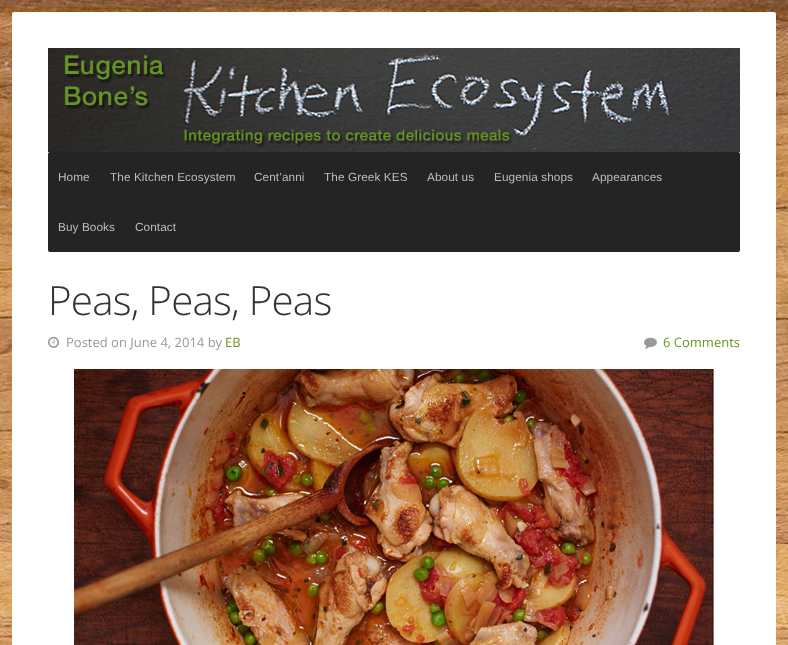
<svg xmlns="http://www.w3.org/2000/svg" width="788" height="645">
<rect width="100%" height="100%" fill="#fff"/>
<image x="0" y="0" width="788" height="645" href="media/1.png"/>
<rect x="12" y="12" width="764" height="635" rx="2" fill="#fff"/>
<image x="48" y="48" width="692" height="104" href="media/2.png"/>
<rect x="48" y="152" width="692" height="100" rx="2" fill="#242424"/>
<text x="58" y="181" style="font-family:Liberation Sans;font-size:11.75px;letter-spacing:0.1px;fill:#bdbdbd">Home</text>
<text x="110" y="181" style="font-family:Liberation Sans;font-size:11.75px;letter-spacing:0.1px;fill:#bdbdbd">The Kitchen Ecosystem</text>
<text x="254" y="181" style="font-family:Liberation Sans;font-size:11.75px;letter-spacing:0.1px;fill:#bdbdbd">Cent’anni</text>
<text x="324" y="181" style="font-family:Liberation Sans;font-size:11.75px;letter-spacing:0.1px;fill:#bdbdbd">The Greek KES</text>
<text x="427" y="181" style="font-family:Liberation Sans;font-size:11.75px;letter-spacing:0.1px;fill:#bdbdbd">About us</text>
<text x="494" y="181" style="font-family:Liberation Sans;font-size:11.75px;letter-spacing:0.1px;fill:#bdbdbd">Eugenia shops</text>
<text x="592" y="181" style="font-family:Liberation Sans;font-size:11.75px;letter-spacing:0.1px;fill:#bdbdbd">Appearances</text>
<text x="58" y="231" style="font-family:Liberation Sans;font-size:11.75px;letter-spacing:0.1px;fill:#bdbdbd">Buy Books</text>
<text x="135" y="231" style="font-family:Liberation Sans;font-size:11.75px;letter-spacing:0.1px;fill:#bdbdbd">Contact</text>
<text x="48" y="315" style="font-family:Open Sans;font-size:40.25px;font-weight:300;letter-spacing:-0.75px;fill:#333">Peas, Peas, Peas</text>
<image x="48" y="336" width="12" height="12" href="media/3.png"/>
<text x="66" y="347" style="font-family:Open Sans;font-size:13px;fill:#999">Posted on June 4, 2014 by</text>
<text x="225" y="347" style="font-family:Open Sans;font-size:13px;fill:#679625">EB</text>
<image x="644" y="337" width="13" height="12" href="media/4.png"/>
<text x="663" y="347" style="font-family:Open Sans;font-size:13px;fill:#679625">6 Comments</text>
<image x="74" y="369" width="640" height="276" href="media/5.png"/>
</svg>
